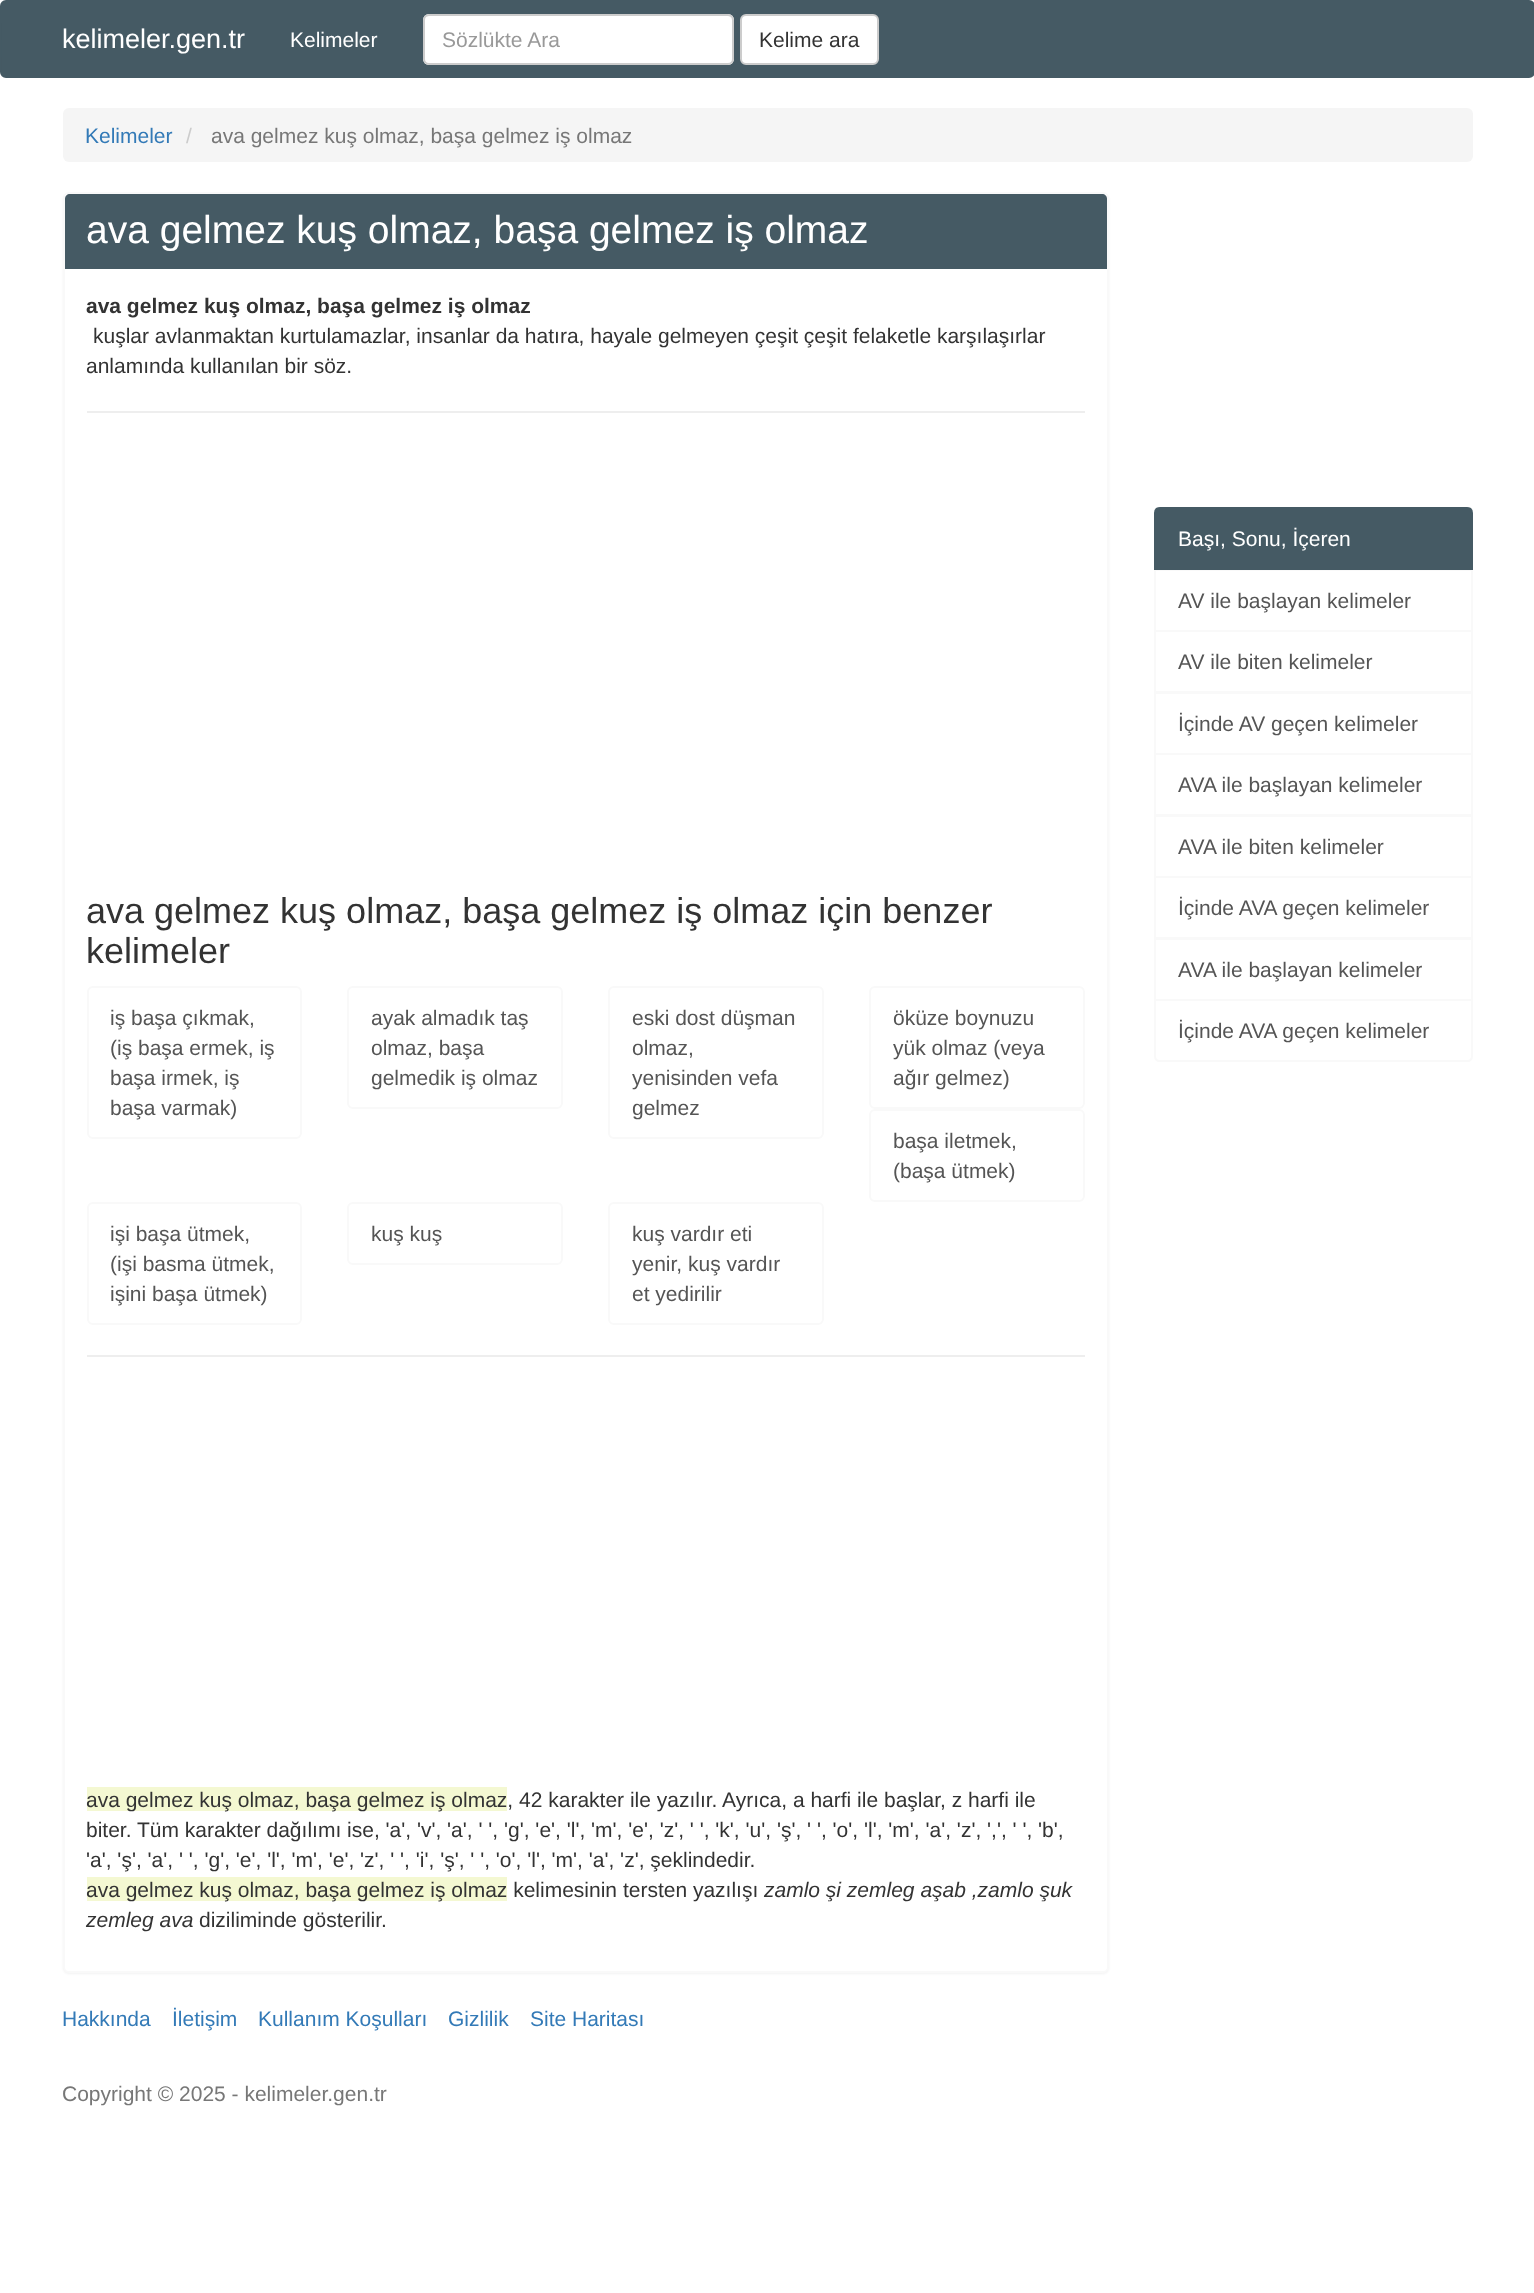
<svg xmlns="http://www.w3.org/2000/svg" width="1534" height="2293">
<rect width="100%" height="100%" fill="#fff"/>
<rect x="1" y="1" width="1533" height="76" rx="5" fill="#455a64" stroke="#455a64" stroke-width="2"/>
<text x="62" y="48" style="font-family:Liberation Sans;font-size:27px;fill:#fff">kelimeler.gen.tr</text>
<text x="290" y="47" style="font-family:Liberation Sans;font-size:21px;fill:#fff">Kelimeler</text>
<rect x="423" y="14" width="311" height="51" rx="6" fill="#fff"/>
<path d="M429 16h299c2 0 4 3 4 5c0-3-2-6-5-6h-298c-2 0-3 2-4 3c1-1 3-2 4-2z" fill="#ececec"/>
<rect x="424" y="15" width="309" height="49" rx="5" fill="none" stroke="#ccc" stroke-width="2"/>
<text x="442" y="47" style="font-family:Liberation Sans;font-size:21px;fill:#999">Sözlükte Ara</text>
<rect x="741" y="15" width="137" height="49" rx="5" fill="#fff" stroke="#ccc" stroke-width="2"/>
<text x="759" y="47" style="font-family:Liberation Sans;font-size:21px;fill:#333">Kelime ara</text>
<rect x="63" y="108" width="1410" height="54" rx="6" fill="#f5f5f5"/>
<text x="85" y="143" style="font-family:Liberation Sans;font-size:21px;fill:#337ab7">Kelimeler</text>
<text x="186" y="143" style="font-family:Liberation Sans;font-size:21px;fill:#ccc">/</text>
<text x="211" y="143" style="font-family:Liberation Sans;font-size:21px;fill:#777">ava gelmez kuş olmaz, başa gelmez iş olmaz</text>
<rect x="63" y="194" width="1046" height="1780" rx="6" fill="#0000000d" filter="blur(1px)"/>
<rect x="64" y="193" width="1044" height="1779" rx="5" fill="#fff" stroke="#f9f9f9" stroke-width="2"/>
<path d="M70 194h1032c3 0 5 2 5 5v70h-1042v-70c0-3 2-5 5-5z" fill="#455a64"/>
<text x="86" y="243" style="font-family:Liberation Sans;font-size:39px;fill:#fff">ava gelmez kuş olmaz, başa gelmez iş olmaz</text>
<text x="86" y="313" style="font-family:Liberation Sans;font-size:21px;font-weight:bold;fill:#333">ava gelmez kuş olmaz, başa gelmez iş olmaz</text>
<text x="93" y="343" style="font-family:Liberation Sans;font-size:21px;fill:#333">kuşlar avlanmaktan kurtulamazlar, insanlar da hatıra, hayale gelmeyen çeşit çeşit felaketle karşılaşırlar</text>
<text x="86" y="373" style="font-family:Liberation Sans;font-size:21px;fill:#333">anlamında kullanılan bir söz.</text>
<rect x="87" y="411" width="998" height="2" fill="#eee"/>
<text x="86" y="923" style="font-family:Liberation Sans;font-size:36px;fill:#333">ava gelmez kuş olmaz, başa gelmez iş olmaz için benzer</text>
<text x="86" y="963" style="font-family:Liberation Sans;font-size:36px;fill:#333">kelimeler</text>
<rect x="88" y="987" width="213" height="151" rx="5" fill="none" stroke="#f9f9f9" stroke-width="2"/>
<text x="110" y="1025" style="font-family:Liberation Sans;font-size:21px;fill:#555">iş başa çıkmak,</text>
<text x="110" y="1055" style="font-family:Liberation Sans;font-size:21px;fill:#555">(iş başa ermek, iş</text>
<text x="110" y="1085" style="font-family:Liberation Sans;font-size:21px;fill:#555">başa irmek, iş</text>
<text x="110" y="1115" style="font-family:Liberation Sans;font-size:21px;fill:#555">başa varmak)</text>
<rect x="348" y="987" width="214" height="121" rx="5" fill="none" stroke="#f9f9f9" stroke-width="2"/>
<text x="371" y="1025" style="font-family:Liberation Sans;font-size:21px;fill:#555">ayak almadık taş</text>
<text x="371" y="1055" style="font-family:Liberation Sans;font-size:21px;fill:#555">olmaz, başa</text>
<text x="371" y="1085" style="font-family:Liberation Sans;font-size:21px;fill:#555">gelmedik iş olmaz</text>
<rect x="609" y="987" width="214" height="151" rx="5" fill="none" stroke="#f9f9f9" stroke-width="2"/>
<text x="632" y="1025" style="font-family:Liberation Sans;font-size:21px;fill:#555">eski dost düşman</text>
<text x="632" y="1055" style="font-family:Liberation Sans;font-size:21px;fill:#555">olmaz,</text>
<text x="632" y="1085" style="font-family:Liberation Sans;font-size:21px;fill:#555">yenisinden vefa</text>
<text x="632" y="1115" style="font-family:Liberation Sans;font-size:21px;fill:#555">gelmez</text>
<rect x="870" y="987" width="214" height="121" rx="5" fill="none" stroke="#f9f9f9" stroke-width="2"/>
<text x="893" y="1025" style="font-family:Liberation Sans;font-size:21px;fill:#555">öküze boynuzu</text>
<text x="893" y="1055" style="font-family:Liberation Sans;font-size:21px;fill:#555">yük olmaz (veya</text>
<text x="893" y="1085" style="font-family:Liberation Sans;font-size:21px;fill:#555">ağır gelmez)</text>
<rect x="870" y="1110" width="214" height="91" rx="5" fill="none" stroke="#f9f9f9" stroke-width="2"/>
<text x="893" y="1148" style="font-family:Liberation Sans;font-size:21px;fill:#555">başa iletmek,</text>
<text x="893" y="1178" style="font-family:Liberation Sans;font-size:21px;fill:#555">(başa ütmek)</text>
<rect x="88" y="1203" width="213" height="121" rx="5" fill="none" stroke="#f9f9f9" stroke-width="2"/>
<text x="110" y="1241" style="font-family:Liberation Sans;font-size:21px;fill:#555">işi başa ütmek,</text>
<text x="110" y="1271" style="font-family:Liberation Sans;font-size:21px;fill:#555">(işi basma ütmek,</text>
<text x="110" y="1301" style="font-family:Liberation Sans;font-size:21px;fill:#555">işini başa ütmek)</text>
<rect x="348" y="1203" width="214" height="61" rx="5" fill="none" stroke="#f9f9f9" stroke-width="2"/>
<text x="371" y="1241" style="font-family:Liberation Sans;font-size:21px;fill:#555">kuş kuş</text>
<rect x="609" y="1203" width="214" height="121" rx="5" fill="none" stroke="#f9f9f9" stroke-width="2"/>
<text x="632" y="1241" style="font-family:Liberation Sans;font-size:21px;fill:#555">kuş vardır eti</text>
<text x="632" y="1271" style="font-family:Liberation Sans;font-size:21px;fill:#555">yenir, kuş vardır</text>
<text x="632" y="1301" style="font-family:Liberation Sans;font-size:21px;fill:#555">et yedirilir</text>
<rect x="87" y="1355" width="998" height="2" fill="#eee"/>
<rect x="87" y="1787" width="420" height="24" fill="#f4f8d2"/>
<text x="86" y="1807" style="font-family:Liberation Sans;font-size:21px;fill:#333">ava gelmez kuş olmaz, başa gelmez iş olmaz, 42 karakter ile yazılır. Ayrıca, a harfi ile başlar, z harfi ile</text>
<text x="86" y="1837" style="font-family:Liberation Sans;font-size:21px;fill:#333">biter. Tüm karakter dağılımı ise, 'a', 'v', 'a', ' ', 'g', 'e', 'l', 'm', 'e', 'z', ' ', 'k', 'u', 'ş', ' ', 'o', 'l', 'm', 'a', 'z', ',', ' ', 'b',</text>
<text x="86" y="1867" style="font-family:Liberation Sans;font-size:21px;fill:#333">'a', 'ş', 'a', ' ', 'g', 'e', 'l', 'm', 'e', 'z', ' ', 'i', 'ş', ' ', 'o', 'l', 'm', 'a', 'z', şeklindedir.</text>
<rect x="87" y="1877" width="420" height="24" fill="#f4f8d2"/>
<text x="86" y="1897" style="font-family:Liberation Sans;font-size:21px;fill:#333">ava gelmez kuş olmaz, başa gelmez iş olmaz kelimesinin tersten yazılışı</text>
<text x="764" y="1897" style="font-family:Liberation Sans;font-size:21px;font-style:italic;fill:#333">zamlo şi zemleg aşab ,zamlo şuk</text>
<text x="86" y="1927" style="font-family:Liberation Sans;font-size:21px;font-style:italic;fill:#333">zemleg ava</text>
<text x="199" y="1927" style="font-family:Liberation Sans;font-size:21px;fill:#333">diziliminde gösterilir.</text>
<rect x="1155" y="570" width="317" height="61" fill="none" stroke="#f9f9f9" stroke-width="2"/>
<path d="M1160 508h307c3 0 5 2 5 5v56h-317v-56c0-3 2-5 5-5z" fill="#455a64" stroke="#455a64" stroke-width="2"/>
<text x="1178" y="546" style="font-family:Liberation Sans;font-size:21px;fill:#fff">Başı, Sonu, İçeren</text>
<text x="1178" y="608" style="font-family:Liberation Sans;font-size:21px;fill:#555">AV ile başlayan kelimeler</text>
<rect x="1155" y="631" width="317" height="61" fill="none" stroke="#f9f9f9" stroke-width="2"/>
<text x="1178" y="669" style="font-family:Liberation Sans;font-size:21px;fill:#555">AV ile biten kelimeler</text>
<rect x="1155" y="693" width="317" height="61" fill="none" stroke="#f9f9f9" stroke-width="2"/>
<text x="1178" y="731" style="font-family:Liberation Sans;font-size:21px;fill:#555">İçinde AV geçen kelimeler</text>
<rect x="1155" y="754" width="317" height="61" fill="none" stroke="#f9f9f9" stroke-width="2"/>
<text x="1178" y="792" style="font-family:Liberation Sans;font-size:21px;fill:#555">AVA ile başlayan kelimeler</text>
<rect x="1155" y="816" width="317" height="61" fill="none" stroke="#f9f9f9" stroke-width="2"/>
<text x="1178" y="854" style="font-family:Liberation Sans;font-size:21px;fill:#555">AVA ile biten kelimeler</text>
<rect x="1155" y="877" width="317" height="61" fill="none" stroke="#f9f9f9" stroke-width="2"/>
<text x="1178" y="915" style="font-family:Liberation Sans;font-size:21px;fill:#555">İçinde AVA geçen kelimeler</text>
<rect x="1155" y="939" width="317" height="61" fill="none" stroke="#f9f9f9" stroke-width="2"/>
<text x="1178" y="977" style="font-family:Liberation Sans;font-size:21px;fill:#555">AVA ile başlayan kelimeler</text>
<path d="M1155 1000h317v56c0 3-2 5-5 5h-307c-3 0-5-2-5-5z" fill="#fff" stroke="#f9f9f9" stroke-width="2"/>
<text x="1178" y="1038" style="font-family:Liberation Sans;font-size:21px;fill:#555">İçinde AVA geçen kelimeler</text>
<text x="62" y="2026" style="font-family:Liberation Sans;font-size:21px;fill:#337ab7">Hakkında</text>
<text x="172" y="2026" style="font-family:Liberation Sans;font-size:21px;fill:#337ab7">İletişim</text>
<text x="258" y="2026" style="font-family:Liberation Sans;font-size:21px;fill:#337ab7">Kullanım Koşulları</text>
<text x="448" y="2026" style="font-family:Liberation Sans;font-size:21px;fill:#337ab7">Gizlilik</text>
<text x="530" y="2026" style="font-family:Liberation Sans;font-size:21px;fill:#337ab7">Site Haritası</text>
<text x="62" y="2101" style="font-family:Liberation Sans;font-size:21px;fill:#777">Copyright © 2025 - kelimeler.gen.tr</text>
</svg>
